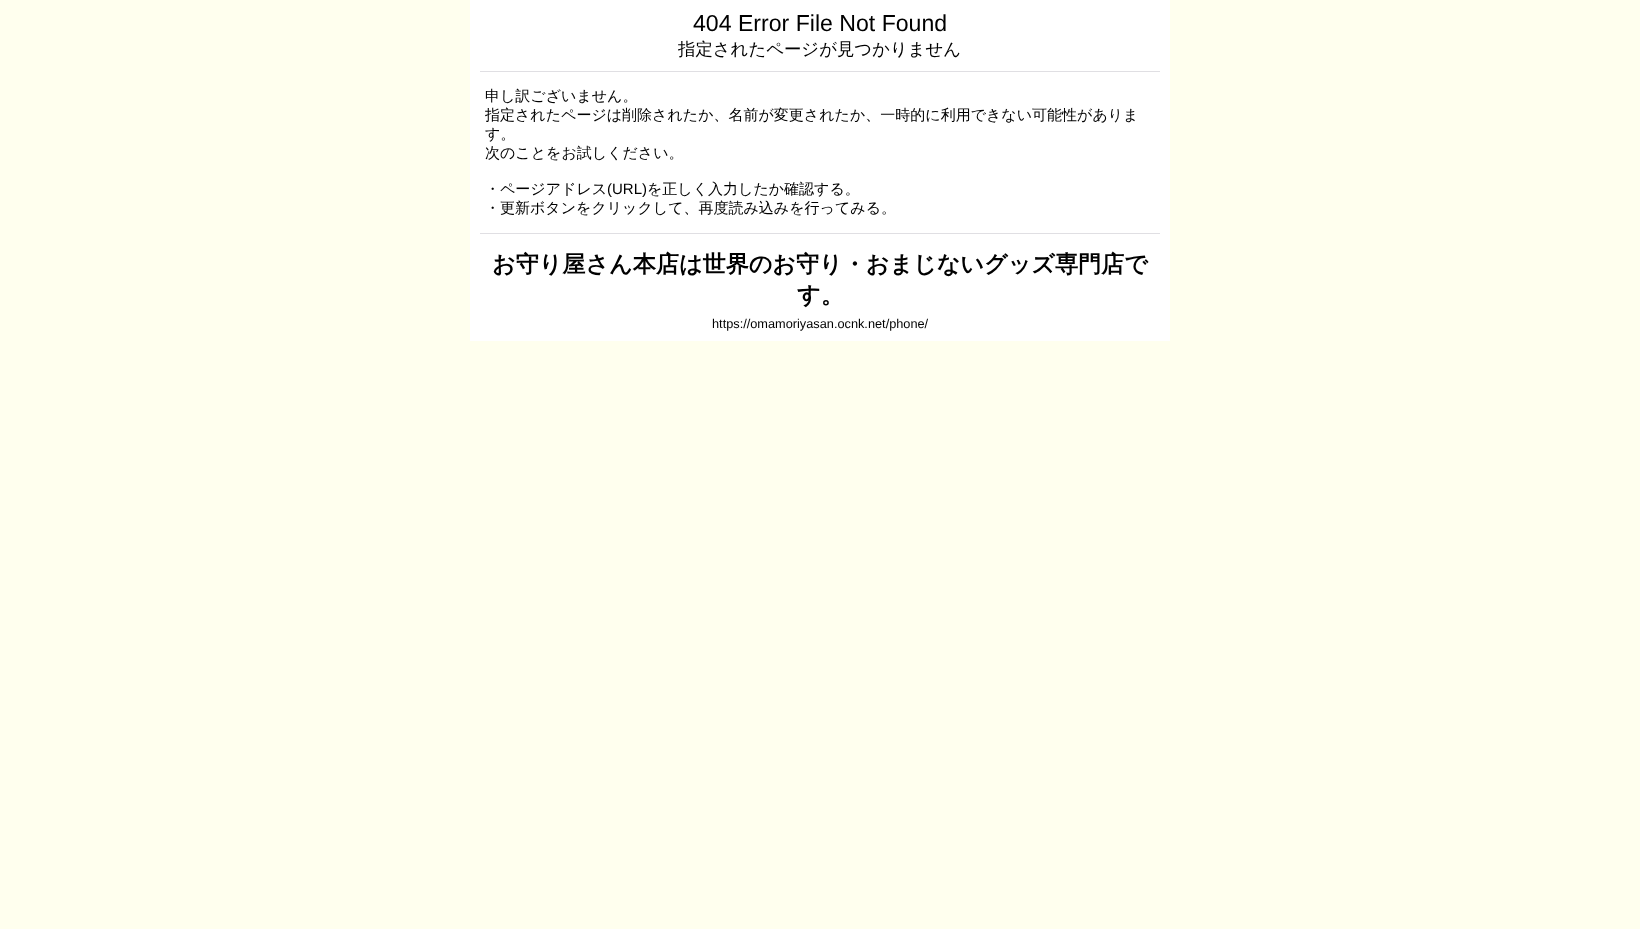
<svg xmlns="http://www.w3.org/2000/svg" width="1640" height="929">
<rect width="100%" height="100%" fill="#ffe"/>
<rect x="470" width="700" height="341" fill="#fff"/>
<text x="693" y="31" style="font-family:Liberation Sans;font-size:23.1px;fill:#000">404 Error File Not Found</text>
<text x="678" y="55" style="font-family:WenQuanYi Zen Hei;font-size:17.4px;font-weight:500;fill:#000">指定されたページが見つかりません</text>
<rect x="480" y="71" width="680" height="1" fill="#e0dfe3"/>
<rect x="480" y="233" width="680" height="1" fill="#e0dfe3"/>
<text x="485" y="101" style="font-family:WenQuanYi Zen Hei;font-size:15px;font-weight:500;fill:#000">申し訳ございません。</text>
<text x="485" y="120" style="font-family:WenQuanYi Zen Hei;font-size:15px;font-weight:500;fill:#000">指定されたページは削除されたか、名前が変更されたか、一時的に利用できない可能性がありま</text>
<text x="485" y="139" style="font-family:WenQuanYi Zen Hei;font-size:15px;font-weight:500;fill:#000">す。</text>
<text x="485" y="158" style="font-family:WenQuanYi Zen Hei;font-size:15px;font-weight:500;fill:#000">次のことをお試しください。</text>
<text x="485" y="194" style="font-family:WenQuanYi Zen Hei;font-size:15px;font-weight:500;fill:#000">・ページアドレス</text>
<text x="607" y="194" style="font-family:Liberation Sans;font-size:15px;fill:#000">(URL)</text>
<text x="647" y="194" style="font-family:WenQuanYi Zen Hei;font-size:15px;font-weight:500;fill:#000">を正しく入力したか確認する。</text>
<text x="485" y="213" style="font-family:WenQuanYi Zen Hei;font-size:15px;font-weight:500;fill:#000">・更新ボタンをクリックして、再度読み込みを行ってみる。</text>
<text x="492" y="272" style="font-family:WenQuanYi Zen Hei;font-size:23.1px;font-weight:bold;fill:#000">お守り屋さん本店は世界のお守り・おまじないグッズ専門店で</text>
<text x="797" y="303" style="font-family:WenQuanYi Zen Hei;font-size:23.1px;font-weight:bold;fill:#000">す。</text>
<text x="712" y="328" style="font-family:Liberation Sans;font-size:12.75px;fill:#000">https://omamoriyasan.ocnk.net/phone/</text>
</svg>
